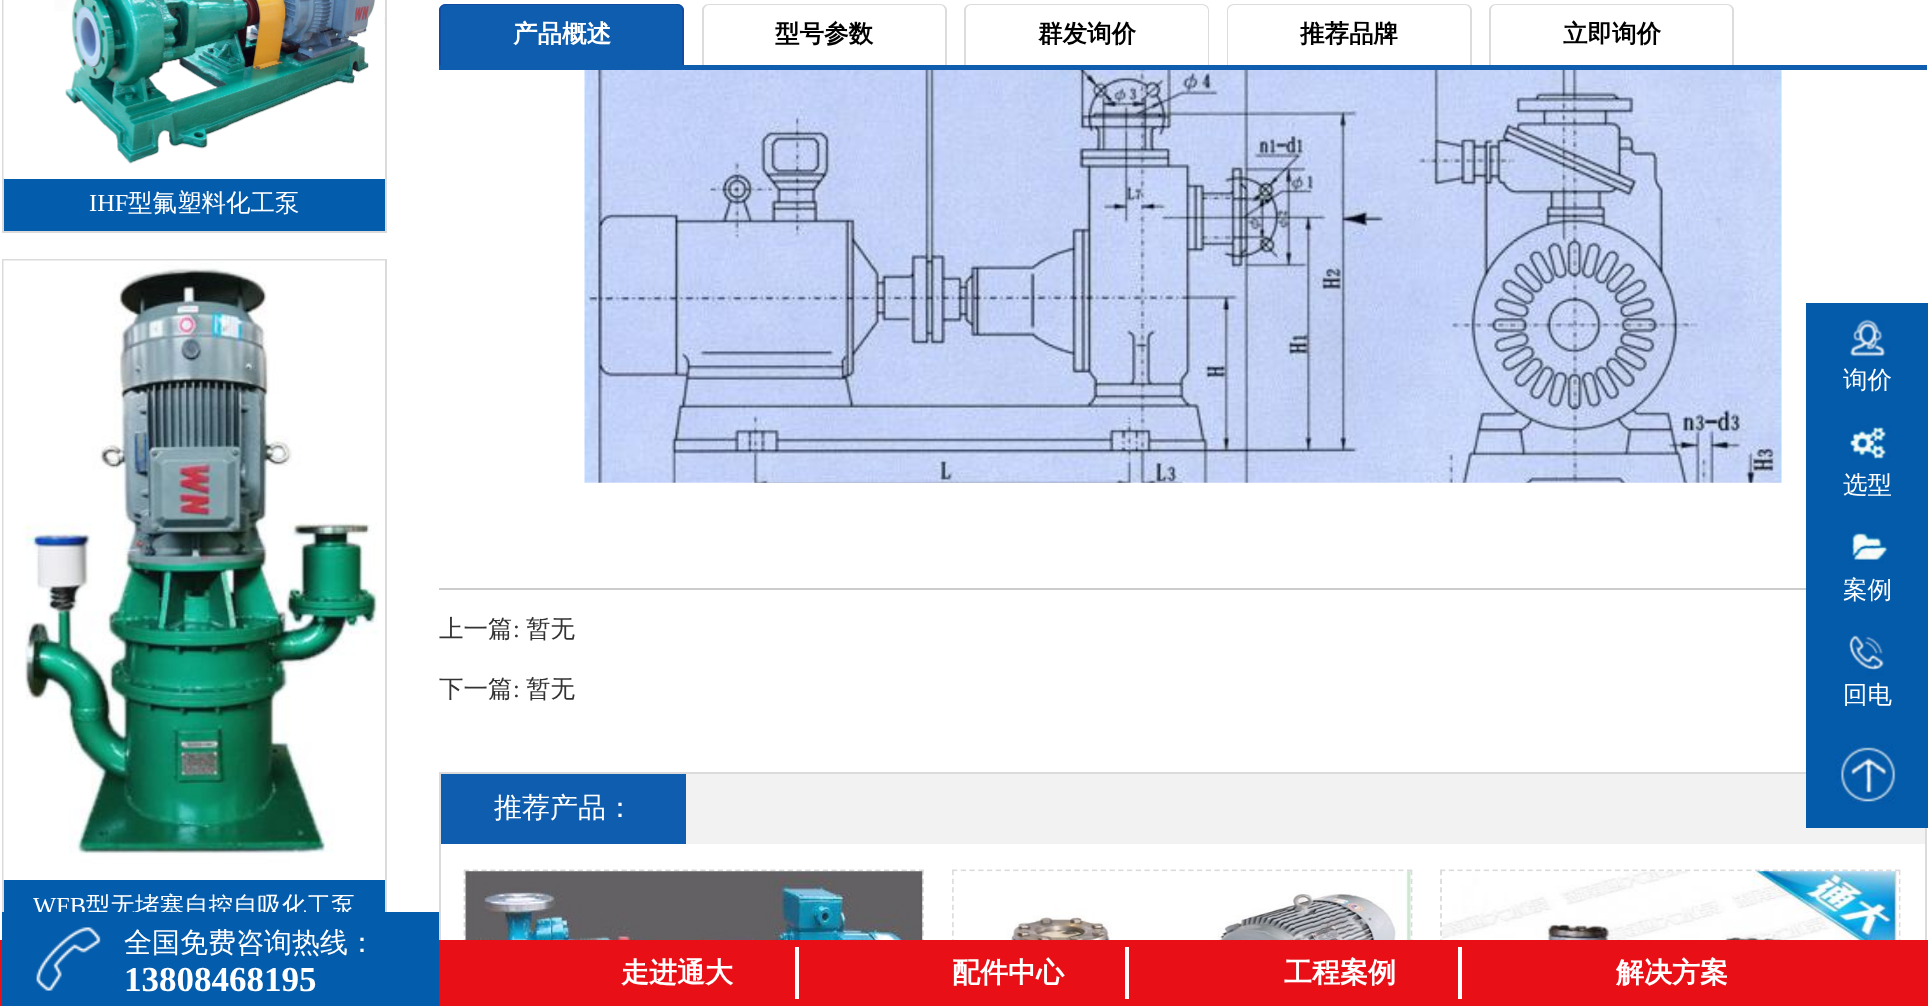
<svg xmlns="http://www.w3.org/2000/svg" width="1928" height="1006">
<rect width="100%" height="100%" fill="#fff"/>
<rect x="439" y="65" width="1488" height="5" fill="#0e5dae"/>
<path d="M446 4h231c4 0 7 3 7 7v54h-245v-54c0-4 3-7 7-7z" fill="#0e5dae"/>
<path d="M446 4h231c4 0 7 3 7 6v55h-245v-55c0-3 3-6 7-6zm0 1h231c3 0 5 3 5 5v55h-241v-55c0-2 2-5 5-5z" fill="#104ca1" fill-rule="evenodd"/>
<text x="513" y="42" style="font-family:WenQuanYi Zen Hei;font-size:24.5px;font-weight:bold;fill:#fff">产品概述</text>
<path d="M709 4h231c4 0 7 3 7 6v55h-245v-55c0-3 3-6 7-6zm0 1h231c3 0 5 3 5 5v55h-241v-55c0-2 2-5 5-5z" fill="#dcdcdc" fill-rule="evenodd"/>
<text x="775" y="42" style="font-family:WenQuanYi Zen Hei;font-size:24.5px;font-weight:bold;fill:#000">型号参数</text>
<path d="M971 4h231c4 0 7 3 7 6v55h-245v-55c0-3 3-6 7-6zm0 1h231c3 0 6 3 6 5v55h-242v-55c0-2 2-5 5-5z" fill="#dcdcdc" fill-rule="evenodd"/>
<text x="1038" y="42" style="font-family:WenQuanYi Zen Hei;font-size:24.5px;font-weight:bold;fill:#000">群发询价</text>
<path d="M1234 4h231c4 0 7 3 7 6v55h-245v-55c0-3 3-6 7-6zm0 1h231c3 0 5 3 5 5v55h-242v-55c0-2 3-5 6-5z" fill="#dcdcdc" fill-rule="evenodd"/>
<text x="1300" y="42" style="font-family:WenQuanYi Zen Hei;font-size:24.5px;font-weight:bold;fill:#000">推荐品牌</text>
<path d="M1496 4h231c4 0 7 3 7 6v55h-245v-55c0-3 3-6 7-6zm0 1h231c3 0 5 3 5 5v55h-241v-55c0-2 2-5 5-5z" fill="#dcdcdc" fill-rule="evenodd"/>
<text x="1563" y="42" style="font-family:WenQuanYi Zen Hei;font-size:24.5px;font-weight:bold;fill:#000">立即询价</text>
<rect x="3" y="-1" width="383" height="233" fill="none" stroke="#dbdbdb" stroke-width="2"/>
<image x="3" y="0" width="382" height="179" href="media/1.png"/>
<rect x="4" y="179" width="381" height="52" fill="#035cac"/>
<text x="89" y="211" style="font-family:Liberation Serif;font-size:24.5px;fill:#fff">IHF</text>
<text x="128" y="211" style="font-family:WenQuanYi Zen Hei;font-size:24.5px;font-weight:500;fill:#fff">型氟塑料化工泵</text>
<rect x="3" y="260" width="383" height="674" fill="none" stroke="#dbdbdb" stroke-width="2"/>
<image x="3" y="260" width="382" height="620" href="media/2.png"/>
<rect x="4" y="880" width="381" height="32" fill="#035cac"/>
<text x="33" y="914" style="font-family:Liberation Serif;font-size:24.5px;fill:#fff">WFB</text>
<text x="86" y="914" style="font-family:WenQuanYi Zen Hei;font-size:24.5px;font-weight:500;fill:#fff">型无堵塞自控自吸化工泵</text>
<image x="584" y="70" width="1198" height="413" href="media/3.png"/>
<rect x="439" y="588" width="1367" height="2" fill="#ccc"/>
<text x="439" y="637" style="font-family:WenQuanYi Zen Hei;font-size:24.5px;font-weight:500;fill:#333">上一篇</text>
<text x="513" y="637" style="font-family:Liberation Serif;font-size:24.5px;fill:#333">:</text>
<text x="526" y="637" style="font-family:WenQuanYi Zen Hei;font-size:24.5px;font-weight:500;fill:#333">暂无</text>
<text x="439" y="697" style="font-family:WenQuanYi Zen Hei;font-size:24.5px;font-weight:500;fill:#333">下一篇</text>
<text x="513" y="697" style="font-family:Liberation Serif;font-size:24.5px;fill:#333">:</text>
<text x="526" y="697" style="font-family:WenQuanYi Zen Hei;font-size:24.5px;font-weight:500;fill:#333">暂无</text>
<rect x="440" y="773" width="1486" height="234" fill="none" stroke="#dbdbdb" stroke-width="2"/>
<rect x="686" y="774" width="1239" height="70" fill="#f2f2f2"/>
<rect x="441" y="774" width="245" height="70" fill="#0e5dae"/>
<text x="494" y="817" style="font-family:WenQuanYi Zen Hei;font-size:28px;font-weight:500;fill:#fff">推荐产品：</text>
<path d="M464 870.5h460" fill="none" stroke="#dbdbdb" stroke-width="1.8" stroke-dasharray="5.25 3.5"/>
<path d="M923 870v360" fill="none" stroke="#dbdbdb" stroke-width="1.8" stroke-dasharray="5.25 3.41"/>
<path d="M464.5 870v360" fill="none" stroke="#dbdbdb" stroke-width="1.8" stroke-dasharray="5.25 3.41"/>
<image x="465" y="871" width="458" height="69" href="media/4.png"/>
<path d="M952 870.5h460" fill="none" stroke="#dbdbdb" stroke-width="1.8" stroke-dasharray="5.25 3.5"/>
<path d="M1411.5 870v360" fill="none" stroke="#dbdbdb" stroke-width="1.8" stroke-dasharray="5.25 3.41"/>
<path d="M953 870v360" fill="none" stroke="#dbdbdb" stroke-width="1.8" stroke-dasharray="5.25 3.41"/>
<image x="953" y="871" width="458" height="69" href="media/5.png"/>
<path d="M1440 870.5h460.5" fill="none" stroke="#dbdbdb" stroke-width="1.8" stroke-dasharray="5.25 3.5"/>
<path d="M1899.5 870v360" fill="none" stroke="#dbdbdb" stroke-width="1.8" stroke-dasharray="5.25 3.41"/>
<path d="M1441 870v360" fill="none" stroke="#dbdbdb" stroke-width="1.8" stroke-dasharray="5.25 3.41"/>
<image x="1442" y="871" width="457" height="69" href="media/6.png"/>
<rect x="1806" y="303" width="122" height="525" fill="#045baa"/>
<image x="1849" y="319" width="41" height="43" href="media/7.png"/>
<text x="1843" y="388" style="font-family:WenQuanYi Zen Hei;font-size:24.5px;font-weight:500;fill:#fff">询价</text>
<image x="1849" y="425" width="42" height="34" href="media/8.png"/>
<text x="1843" y="493" style="font-family:WenQuanYi Zen Hei;font-size:24.5px;font-weight:500;fill:#fff">选型</text>
<image x="1849" y="530" width="42" height="34" href="media/9.png"/>
<text x="1843" y="598" style="font-family:WenQuanYi Zen Hei;font-size:24.5px;font-weight:500;fill:#fff">案例</text>
<image x="1849" y="635" width="35" height="42" href="media/10.png"/>
<text x="1843" y="703" style="font-family:WenQuanYi Zen Hei;font-size:24.5px;font-weight:500;fill:#fff">回电</text>
<image x="1835" y="743" width="61" height="61" href="media/11.png"/>
<rect y="940" width="1928" height="66" fill="#e90f16"/>
<rect x="2" y="912" width="437" height="94" fill="#035cac"/>
<image x="36" y="927" width="65" height="64" href="media/12.png"/>
<text x="124" y="952" style="font-family:WenQuanYi Zen Hei;font-size:28px;font-weight:500;fill:#fff">全国免费咨询热线：</text>
<text x="124" y="991" style="font-family:Liberation Serif;font-size:35px;font-weight:bold;fill:#fff">13808468195</text>
<rect x="795" y="947" width="4" height="52" fill="#fff"/>
<text x="621" y="982" style="font-family:WenQuanYi Zen Hei;font-size:28px;font-weight:bold;fill:#fff">走进通大</text>
<rect x="1125" y="947" width="4" height="52" fill="#fff"/>
<text x="952" y="982" style="font-family:WenQuanYi Zen Hei;font-size:28px;font-weight:bold;fill:#fff">配件中心</text>
<rect x="1458" y="947" width="4" height="52" fill="#fff"/>
<text x="1284" y="982" style="font-family:WenQuanYi Zen Hei;font-size:28px;font-weight:bold;fill:#fff">工程案例</text>
<text x="1616" y="982" style="font-family:WenQuanYi Zen Hei;font-size:28px;font-weight:bold;fill:#fff">解决方案</text>
</svg>
